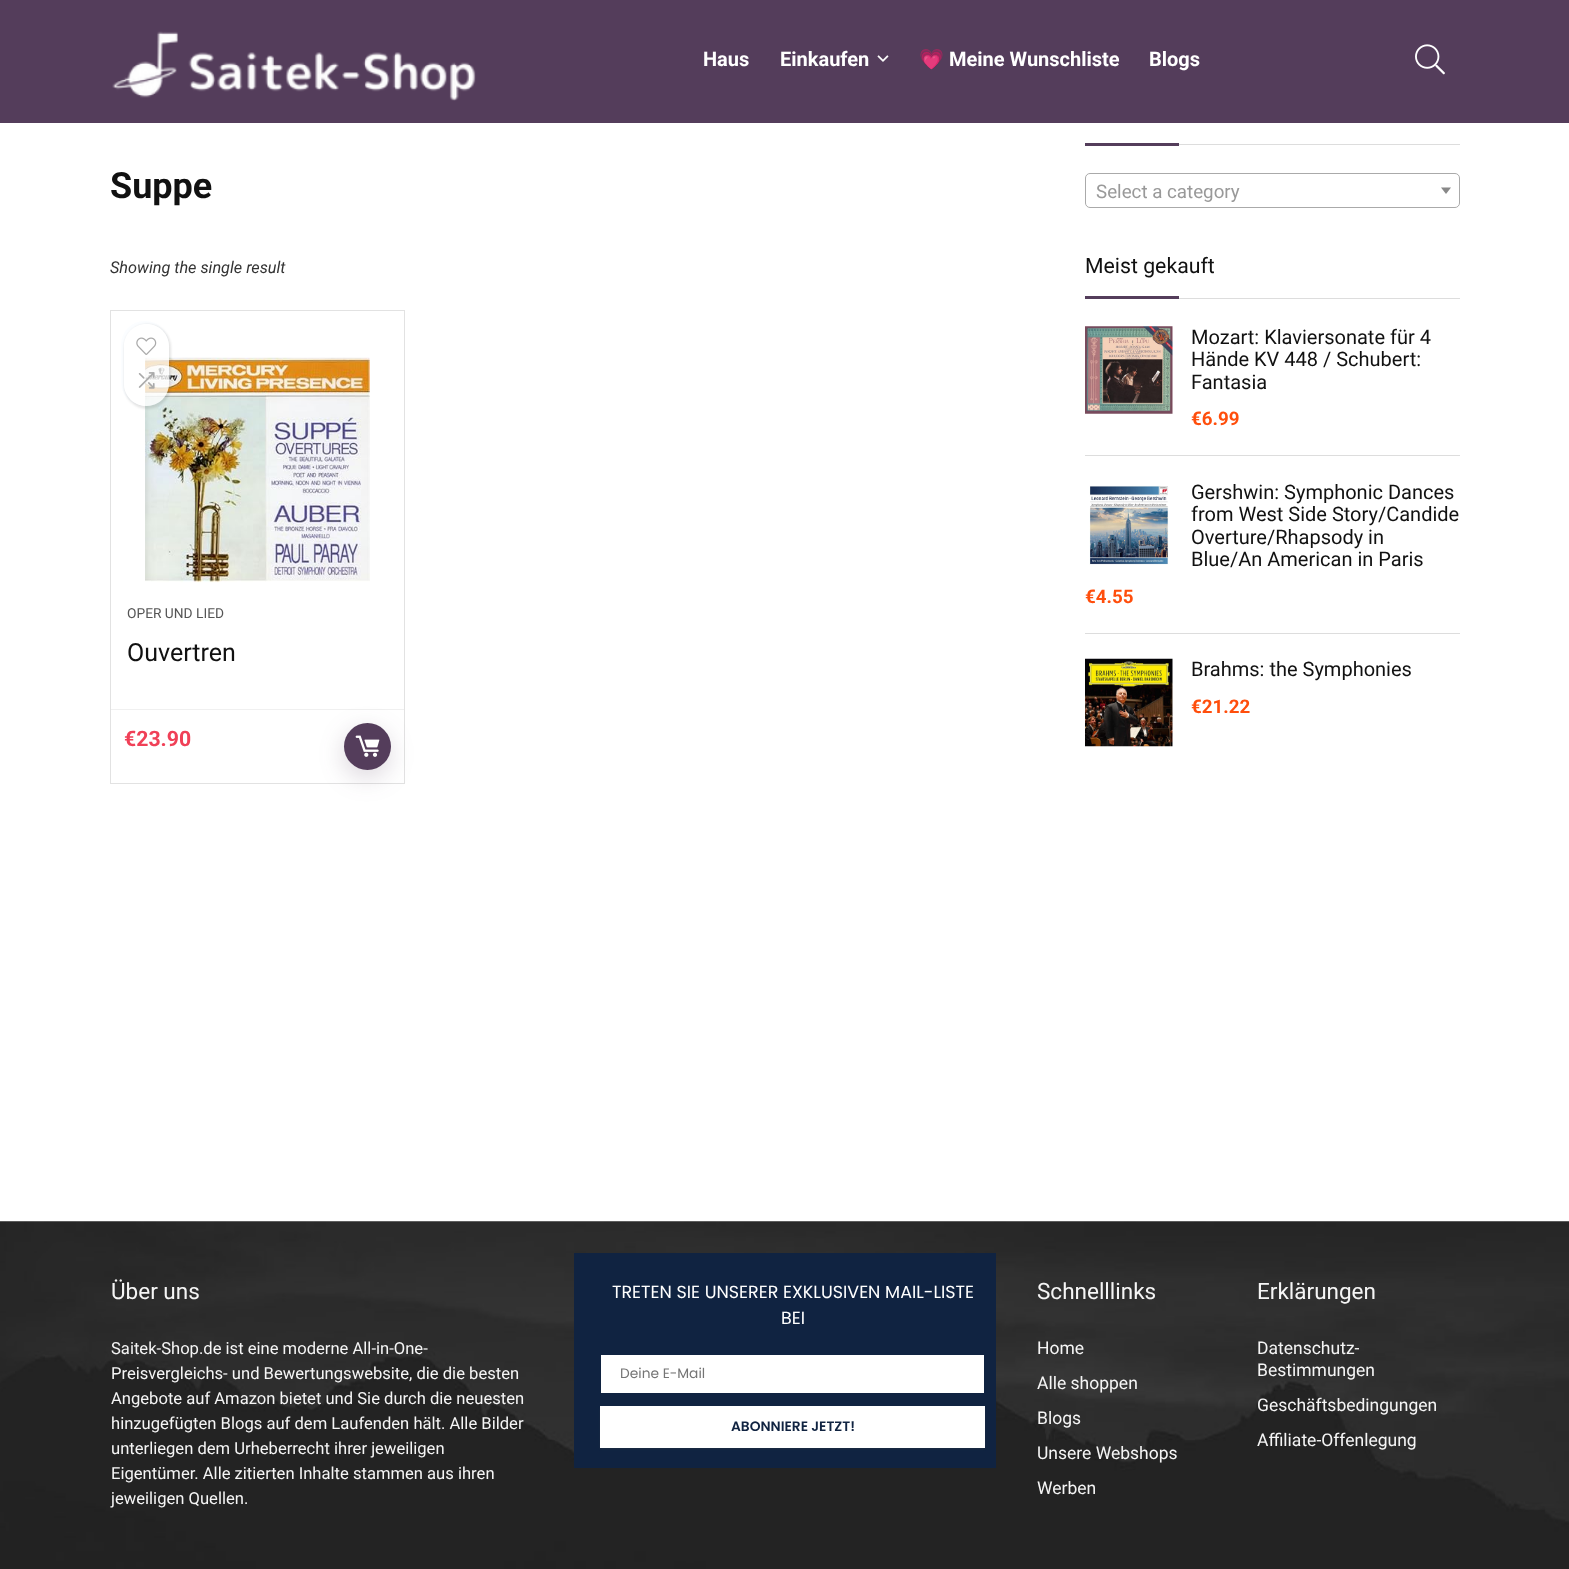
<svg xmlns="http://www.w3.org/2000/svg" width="1569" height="1569">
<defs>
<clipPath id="clip1"><path d="M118 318h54v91h-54zm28.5 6c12.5 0 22.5 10 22.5 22.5v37c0 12.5-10 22.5-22.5 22.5c-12.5 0-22.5-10-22.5-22.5v-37c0-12.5 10-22.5 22.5-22.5z" clip-rule="evenodd"/></clipPath>
<clipPath id="clip2"><path d="M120 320h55v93h-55zm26.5 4c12.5 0 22.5 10 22.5 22.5v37c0 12.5-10 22.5-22.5 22.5c-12.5 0-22.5-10-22.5-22.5v-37c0-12.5 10-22.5 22.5-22.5z" clip-rule="evenodd"/></clipPath>
</defs>
<rect width="100%" height="100%" fill="#fff"/>
<rect width="1569" height="123" fill="#543d5b"/>
<image x="112" y="31" width="364" height="70" href="media/1.png"/>
<text x="703" y="66" style="font-family:Roboto;font-size:20px;font-weight:bold;fill:#fff">Haus</text>
<text x="780" y="66" style="font-family:Roboto;font-size:20px;font-weight:bold;fill:#fff">Einkaufen</text>
<image x="877" y="55" width="12" height="7" href="media/2.png"/>
<text x="919" y="66" style="font-family:Noto Color Emoji;font-size:20px;font-weight:bold;fill:#fff">💗</text>
<text x="949" y="66" style="font-family:Roboto;font-size:20px;font-weight:bold;fill:#fff">Meine Wunschliste</text>
<text x="1149" y="66" style="font-family:Roboto;font-size:20px;font-weight:bold;fill:#fff">Blogs</text>
<image x="1415" y="44" width="30" height="31" href="media/3.png"/>
<text x="110" y="198" style="font-family:Roboto;font-size:36px;font-weight:bold;fill:#111">Suppe</text>
<text x="110" y="273" style="font-family:Roboto;font-size:16.25px;font-style:italic;fill:#333">Showing the single result</text>
<rect x="110.5" y="310.5" width="294" height="473" fill="none" stroke="#e2e2e2"/>
<image x="145" y="357" width="225" height="226" href="media/6.png"/>
<g clip-path="url(#clip1)">
<rect x="121" y="321" width="48" height="85" rx="24" fill="#f7fbff80" filter="blur(0.5px)"/>
</g>
<g clip-path="url(#clip2)">
<rect x="124" y="324" width="47" height="85" rx="23.5" fill="#0000001a" filter="blur(1px)"/>
</g>
<rect x="124" y="324" width="45" height="82" rx="22.5" fill="#ffffffc7"/>
<image x="136" y="337" width="21" height="18" href="media/4.png"/>
<image x="138" y="372" width="17" height="17" href="media/5.png"/>
<text x="127" y="618" style="font-family:Roboto;font-size:13.75px;fill:#555">OPER UND LIED</text>
<text x="127" y="661" style="font-family:Roboto;font-size:25px;fill:#111">Ouvertren</text>
<rect x="111" y="709" width="293" height="1" fill="#f0f0f0"/>
<text x="124" y="746" style="font-family:Roboto;font-size:21.25px;font-weight:bold;fill:#f04057">€23.90</text>
<rect x="343" y="730" width="47" height="48" rx="23.5" fill="#543d5b33" filter="blur(12px)"/>
<circle cx="367.5" cy="746.5" r="23.5" fill="#543d5b"/>
<image x="355" y="735" width="25" height="22" href="media/7.png"/>
<rect x="1179" y="144" width="281" height="1" fill="#ddd"/>
<rect x="1085" y="143" width="94" height="3" fill="#543d5b"/>
<rect x="1085.5" y="173.5" width="374" height="34" rx="4.5" fill="none" stroke="#aaa"/>
<text x="1096" y="198" style="font-family:Roboto;font-size:18.75px;fill:#999">Select a category</text>
<path d="M1441 187.5h10l-5 6.5z" fill="#888"/>
<rect x="1179" y="298" width="281" height="1" fill="#ddd"/>
<text x="1085" y="273" style="font-family:Roboto;font-size:21.25px;fill:#111">Meist gekauft</text>
<rect x="1085" y="296" width="94" height="3" fill="#543d5b"/>
<rect x="1085" y="455" width="375" height="1" fill="#ddd"/>
<image x="1085" y="326" width="88" height="88" href="media/8.png"/>
<text x="1191" y="344" style="font-family:Roboto;font-size:20px;fill:#111">Mozart: Klaviersonate für 4</text>
<text x="1191" y="366" style="font-family:Roboto;font-size:20px;fill:#111">Hände KV 448 / Schubert:</text>
<text x="1191" y="389" style="font-family:Roboto;font-size:20px;fill:#111">Fantasia</text>
<text x="1191" y="425" style="font-family:Roboto;font-size:18.75px;font-weight:bold;fill:#ff4e0c">€6.99</text>
<rect x="1085" y="633" width="375" height="1" fill="#ddd"/>
<image x="1089" y="485" width="80" height="80" href="media/9.png"/>
<text x="1191" y="499" style="font-family:Roboto;font-size:20px;fill:#111">Gershwin: Symphonic Dances</text>
<text x="1191" y="521" style="font-family:Roboto;font-size:20px;fill:#111">from West Side Story/Candide</text>
<text x="1191" y="544" style="font-family:Roboto;font-size:20px;fill:#111">Overture/Rhapsody in</text>
<text x="1191" y="566" style="font-family:Roboto;font-size:20px;fill:#111">Blue/An American in Paris</text>
<text x="1085" y="603" style="font-family:Roboto;font-size:18.75px;font-weight:bold;fill:#ff4e0c">€4.55</text>
<image x="1085" y="658" width="88" height="89" href="media/10.png"/>
<text x="1191" y="676" style="font-family:Roboto;font-size:20px;fill:#111">Brahms: the Symphonies</text>
<text x="1191" y="713" style="font-family:Roboto;font-size:18.75px;font-weight:bold;fill:#ff4e0c">€21.22</text>
<image x="0" y="1221" width="1569" height="348" href="media/11.png"/>
<text x="111" y="1299" style="font-family:Roboto;font-size:22.5px;fill:#f5f5f5">Über uns</text>
<text x="111" y="1354" style="font-family:Roboto;font-size:16.6px;fill:#f5f5f5">Saitek-Shop.de ist eine moderne All-in-One-</text>
<text x="111" y="1379" style="font-family:Roboto;font-size:16.6px;fill:#f5f5f5">Preisvergleichs- und Bewertungswebsite, die die besten</text>
<text x="111" y="1404" style="font-family:Roboto;font-size:16.6px;fill:#f5f5f5">Angebote auf Amazon bietet und Sie durch die neuesten</text>
<text x="111" y="1429" style="font-family:Roboto;font-size:16.6px;fill:#f5f5f5">hinzugefügten Blogs auf dem Laufenden hält. Alle Bilder</text>
<text x="111" y="1454" style="font-family:Roboto;font-size:16.6px;fill:#f5f5f5">unterliegen dem Urheberrecht ihrer jeweiligen</text>
<text x="111" y="1479" style="font-family:Roboto;font-size:16.6px;fill:#f5f5f5">Eigentümer. Alle zitierten Inhalte stammen aus ihren</text>
<text x="111" y="1504" style="font-family:Roboto;font-size:16.6px;fill:#f5f5f5">jeweiligen Quellen.</text>
<rect x="574" y="1253" width="422" height="215" fill="#102341"/>
<text x="612" y="1298" style="font-family:Poppins;font-size:17.5px;fill:#fff">TRETEN SIE UNSERER EXKLUSIVEN MAIL-LISTE</text>
<text x="781" y="1324" style="font-family:Poppins;font-size:17.5px;fill:#fff">BEI</text>
<rect x="601" y="1355" width="383" height="38" fill="#fff"/>
<text x="620" y="1378" style="font-family:Poppins;font-size:13.75px;fill:#757575">Deine E-Mail</text>
<rect x="600" y="1408" width="385" height="41" fill="#3c40434d" filter="blur(1px)"/>
<rect x="600" y="1406" width="385" height="42" fill="#fff"/>
<text x="731" y="1431" style="font-family:Poppins;font-size:13.75px;font-weight:600;fill:#102341">ABONNIERE JETZT!</text>
<text x="1037" y="1299" style="font-family:Roboto;font-size:22.5px;fill:#f5f5f5">Schnelllinks</text>
<text x="1037" y="1354" style="font-family:Roboto;font-size:17.5px;fill:#f5f5f5">Home</text>
<text x="1037" y="1389" style="font-family:Roboto;font-size:17.5px;fill:#f5f5f5">Alle shoppen</text>
<text x="1037" y="1424" style="font-family:Roboto;font-size:17.5px;fill:#f5f5f5">Blogs</text>
<text x="1037" y="1459" style="font-family:Roboto;font-size:17.5px;fill:#f5f5f5">Unsere Webshops</text>
<text x="1037" y="1494" style="font-family:Roboto;font-size:17.5px;fill:#f5f5f5">Werben</text>
<text x="1257" y="1299" style="font-family:Roboto;font-size:22.5px;fill:#f5f5f5">Erklärungen</text>
<text x="1257" y="1354" style="font-family:Roboto;font-size:17.5px;fill:#f5f5f5">Datenschutz-</text>
<text x="1257" y="1376" style="font-family:Roboto;font-size:17.5px;fill:#f5f5f5">Bestimmungen</text>
<text x="1257" y="1411" style="font-family:Roboto;font-size:17.5px;fill:#f5f5f5">Geschäftsbedingungen</text>
<text x="1257" y="1446" style="font-family:Roboto;font-size:17.5px;fill:#f5f5f5">Affiliate-Offenlegung</text>
</svg>
